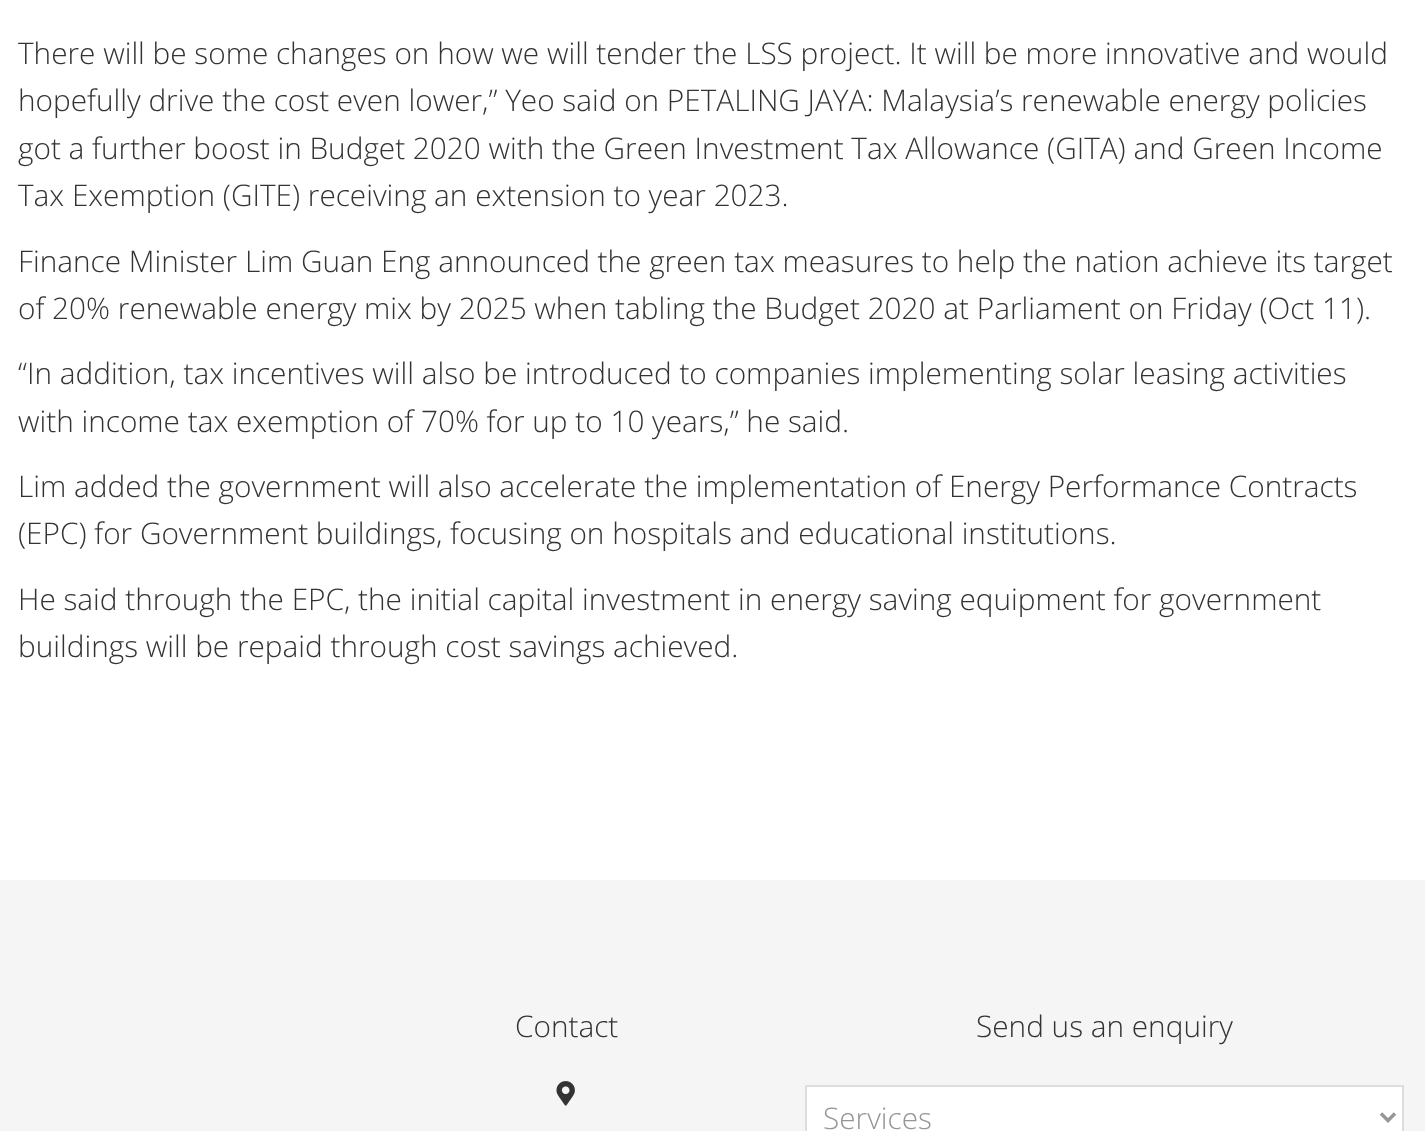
<svg xmlns="http://www.w3.org/2000/svg" width="1425" height="1131">
<rect width="100%" height="100%" fill="#fff"/>
<text x="18" y="64" style="font-family:Open Sans;font-size:29.75px;font-weight:300;fill:#333">There will be some changes on how we will tender the LSS project. It will be more innovative and would</text>
<text x="18" y="111" style="font-family:Open Sans;font-size:29.75px;font-weight:300;fill:#333">hopefully drive the cost even lower,” Yeo said on PETALING JAYA: Malaysia’s renewable energy policies</text>
<text x="18" y="159" style="font-family:Open Sans;font-size:29.75px;font-weight:300;fill:#333">got a further boost in Budget 2020 with the Green Investment Tax Allowance (GITA) and Green Income</text>
<text x="18" y="206" style="font-family:Open Sans;font-size:29.75px;font-weight:300;fill:#333">Tax Exemption (GITE) receiving an extension to year 2023.</text>
<text x="18" y="272" style="font-family:Open Sans;font-size:29.75px;font-weight:300;fill:#333">Finance Minister Lim Guan Eng announced the green tax measures to help the nation achieve its target</text>
<text x="18" y="319" style="font-family:Open Sans;font-size:29.75px;font-weight:300;fill:#333">of 20% renewable energy mix by 2025 when tabling the Budget 2020 at Parliament on Friday (Oct 11).</text>
<text x="18" y="384" style="font-family:Open Sans;font-size:29.75px;font-weight:300;fill:#333">“In addition, tax incentives will also be introduced to companies implementing solar leasing activities</text>
<text x="18" y="432" style="font-family:Open Sans;font-size:29.75px;font-weight:300;fill:#333">with income tax exemption of 70% for up to 10 years,” he said.</text>
<text x="18" y="497" style="font-family:Open Sans;font-size:29.75px;font-weight:300;fill:#333">Lim added the government will also accelerate the implementation of Energy Performance Contracts</text>
<text x="18" y="544" style="font-family:Open Sans;font-size:29.75px;font-weight:300;fill:#333">(EPC) for Government buildings, focusing on hospitals and educational institutions.</text>
<text x="18" y="610" style="font-family:Open Sans;font-size:29.75px;font-weight:300;fill:#333">He said through the EPC, the initial capital investment in energy saving equipment for government</text>
<text x="18" y="657" style="font-family:Open Sans;font-size:29.75px;font-weight:300;fill:#333">buildings will be repaid through cost savings achieved.</text>
<rect y="880" width="1425" height="251" fill="#f5f5f5"/>
<text x="515" y="1037" style="font-family:Open Sans;font-size:29.75px;font-weight:300;fill:#333">Contact</text>
<image x="556" y="1081" width="19" height="25" href="media/1.png"/>
<text x="976" y="1037" style="font-family:Open Sans;font-size:29.75px;font-weight:300;fill:#333">Send us an enquiry</text>
<rect x="806" y="1086" width="597" height="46" fill="#fff" stroke="#ddd" stroke-width="2"/>
<path d="M1381 1113.5l7 7l7-7" fill="none" stroke="#969696" stroke-width="3.5"/>
<text x="823" y="1129" style="font-family:Open Sans;font-size:29.75px;font-weight:300;fill:#969696">Services</text>
</svg>
